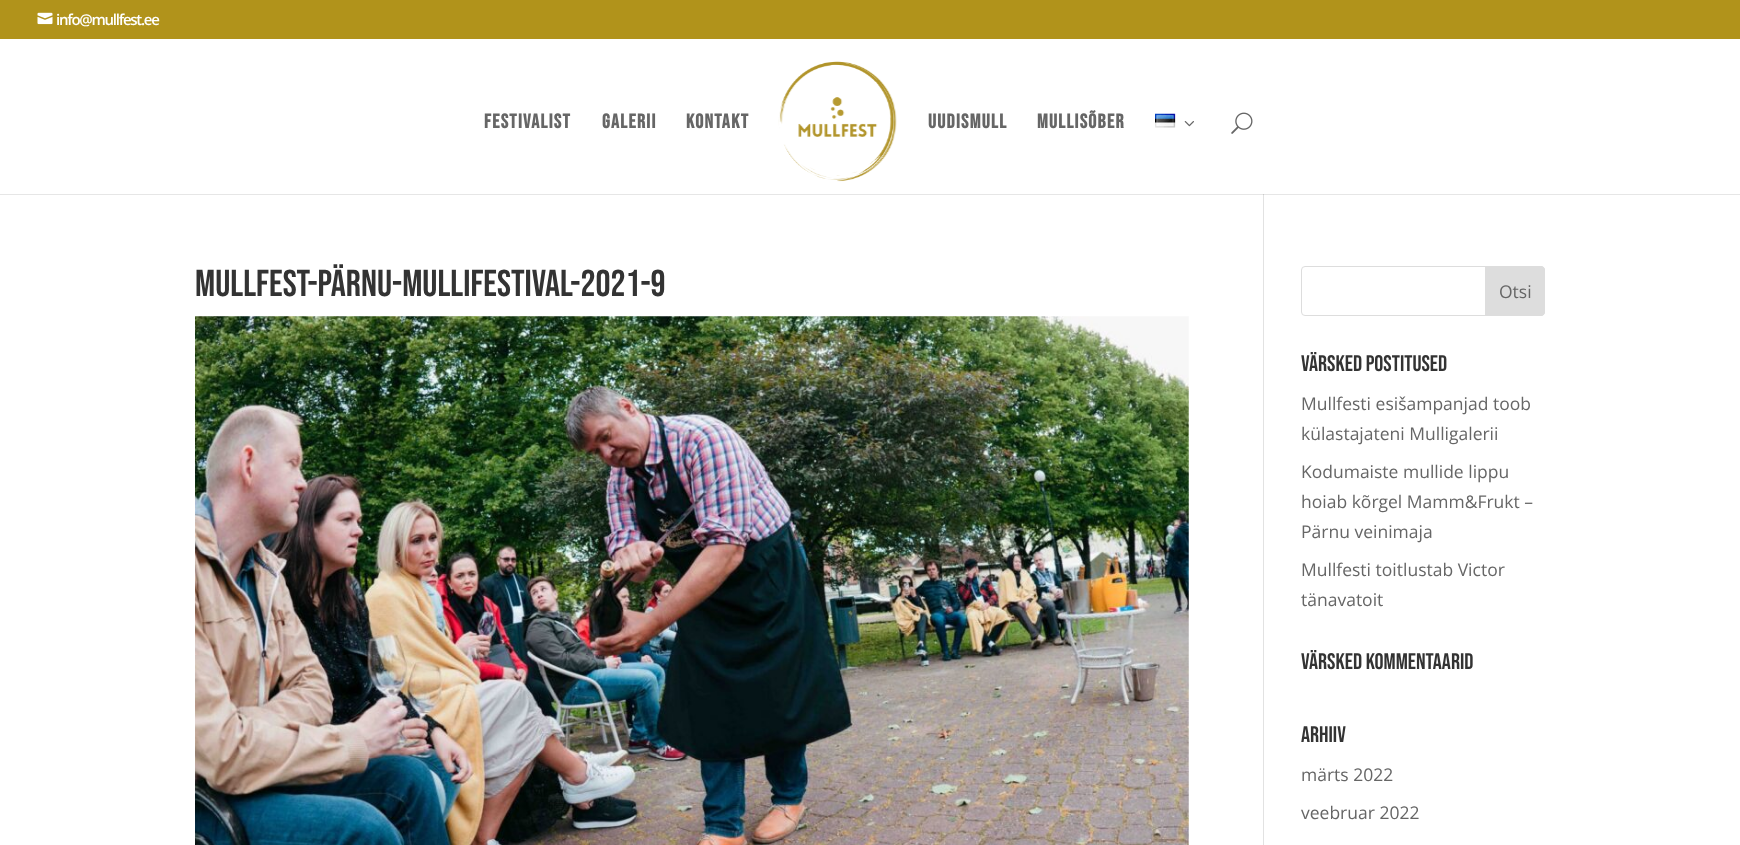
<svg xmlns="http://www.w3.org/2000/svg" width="1740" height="845">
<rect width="100%" height="100%" fill="#b1931b"/>
<image x="37" y="12" width="16" height="13" href="media/1.png"/>
<text x="56" y="25" style="font-family:Open Sans;font-size:15px;font-weight:600;letter-spacing:-1.25px;fill:#fff">info@mullfest.ee</text>
<rect y="39" width="1740" height="155" fill="#fff"/>
<text x="484" y="128" style="font-family:Bebas Neue;font-size:20px;font-weight:bold;letter-spacing:1.25px;fill:#666">Festivalist</text>
<text x="602" y="128" style="font-family:Bebas Neue;font-size:20px;font-weight:bold;letter-spacing:1.25px;fill:#666">Galerii</text>
<text x="686" y="128" style="font-family:Bebas Neue;font-size:20px;font-weight:bold;letter-spacing:1.25px;fill:#666">Kontakt</text>
<image x="778" y="61" width="119" height="121" href="media/2.png"/>
<text x="928" y="128" style="font-family:Bebas Neue;font-size:20px;font-weight:bold;letter-spacing:1.25px;fill:#666">UUDISMULL</text>
<text x="1037" y="128" style="font-family:Bebas Neue;font-size:20px;font-weight:bold;letter-spacing:1.25px;fill:#666">mullisõber</text>
<image x="1155" y="113" width="21" height="15" href="media/3.png"/>
<image x="1184" y="121" width="10" height="6" href="media/4.png"/>
<image x="1231" y="112" width="22" height="22" href="media/5.png"/>
<rect y="195" width="1740" height="650" fill="#fff"/>
<rect y="194" width="1740" height="1" fill="#e6e6e6"/>
<rect x="1263" y="194" width="1" height="651" fill="#e2e2e2"/>
<rect x="1263" y="194" width="1" height="1" fill="#cbcbcb"/>
<text x="195" y="296" style="font-family:Bebas Neue;font-size:37.5px;fill:#333">Mullfest-Pärnu-mullifestival-2021-9</text>
<image x="195" y="316" width="994" height="529" href="media/6.png"/>
<rect x="1301.5" y="266.5" width="243" height="49" rx="3.5" fill="none" stroke="#ddd"/>
<path d="M1485.5 266.5h55.5c2 0 3.5 1.5 3.5 3.5v42c0 2-1.5 3.5-3.5 3.5h-55.5z" fill="#ddd" stroke="#ddd"/>
<text x="1499" y="298" style="font-family:Open Sans;font-size:17.5px;fill:#666">Otsi</text>
<text x="1301" y="371" style="font-family:Bebas Neue;font-size:22.5px;fill:#333">Värsked postitused</text>
<text x="1301" y="410" style="font-family:Open Sans;font-size:17.5px;fill:#666">Mullfesti esišampanjad toob</text>
<text x="1301" y="440" style="font-family:Open Sans;font-size:17.5px;fill:#666">külastajateni Mulligalerii</text>
<text x="1301" y="478" style="font-family:Open Sans;font-size:17.5px;fill:#666">Kodumaiste mullide lippu</text>
<text x="1301" y="508" style="font-family:Open Sans;font-size:17.5px;fill:#666">hoiab kõrgel Mamm&amp;Frukt –</text>
<text x="1301" y="538" style="font-family:Open Sans;font-size:17.5px;fill:#666">Pärnu veinimaja</text>
<text x="1301" y="576" style="font-family:Open Sans;font-size:17.5px;fill:#666">Mullfesti toitlustab Victor</text>
<text x="1301" y="606" style="font-family:Open Sans;font-size:17.5px;fill:#666">tänavatoit</text>
<text x="1301" y="669" style="font-family:Bebas Neue;font-size:22.5px;fill:#333">Värsked kommentaarid</text>
<text x="1301" y="742" style="font-family:Bebas Neue;font-size:22.5px;fill:#333">Arhiiv</text>
<text x="1301" y="781" style="font-family:Open Sans;font-size:17.5px;fill:#666">märts 2022</text>
<text x="1301" y="819" style="font-family:Open Sans;font-size:17.5px;fill:#666">veebruar 2022</text>
</svg>
